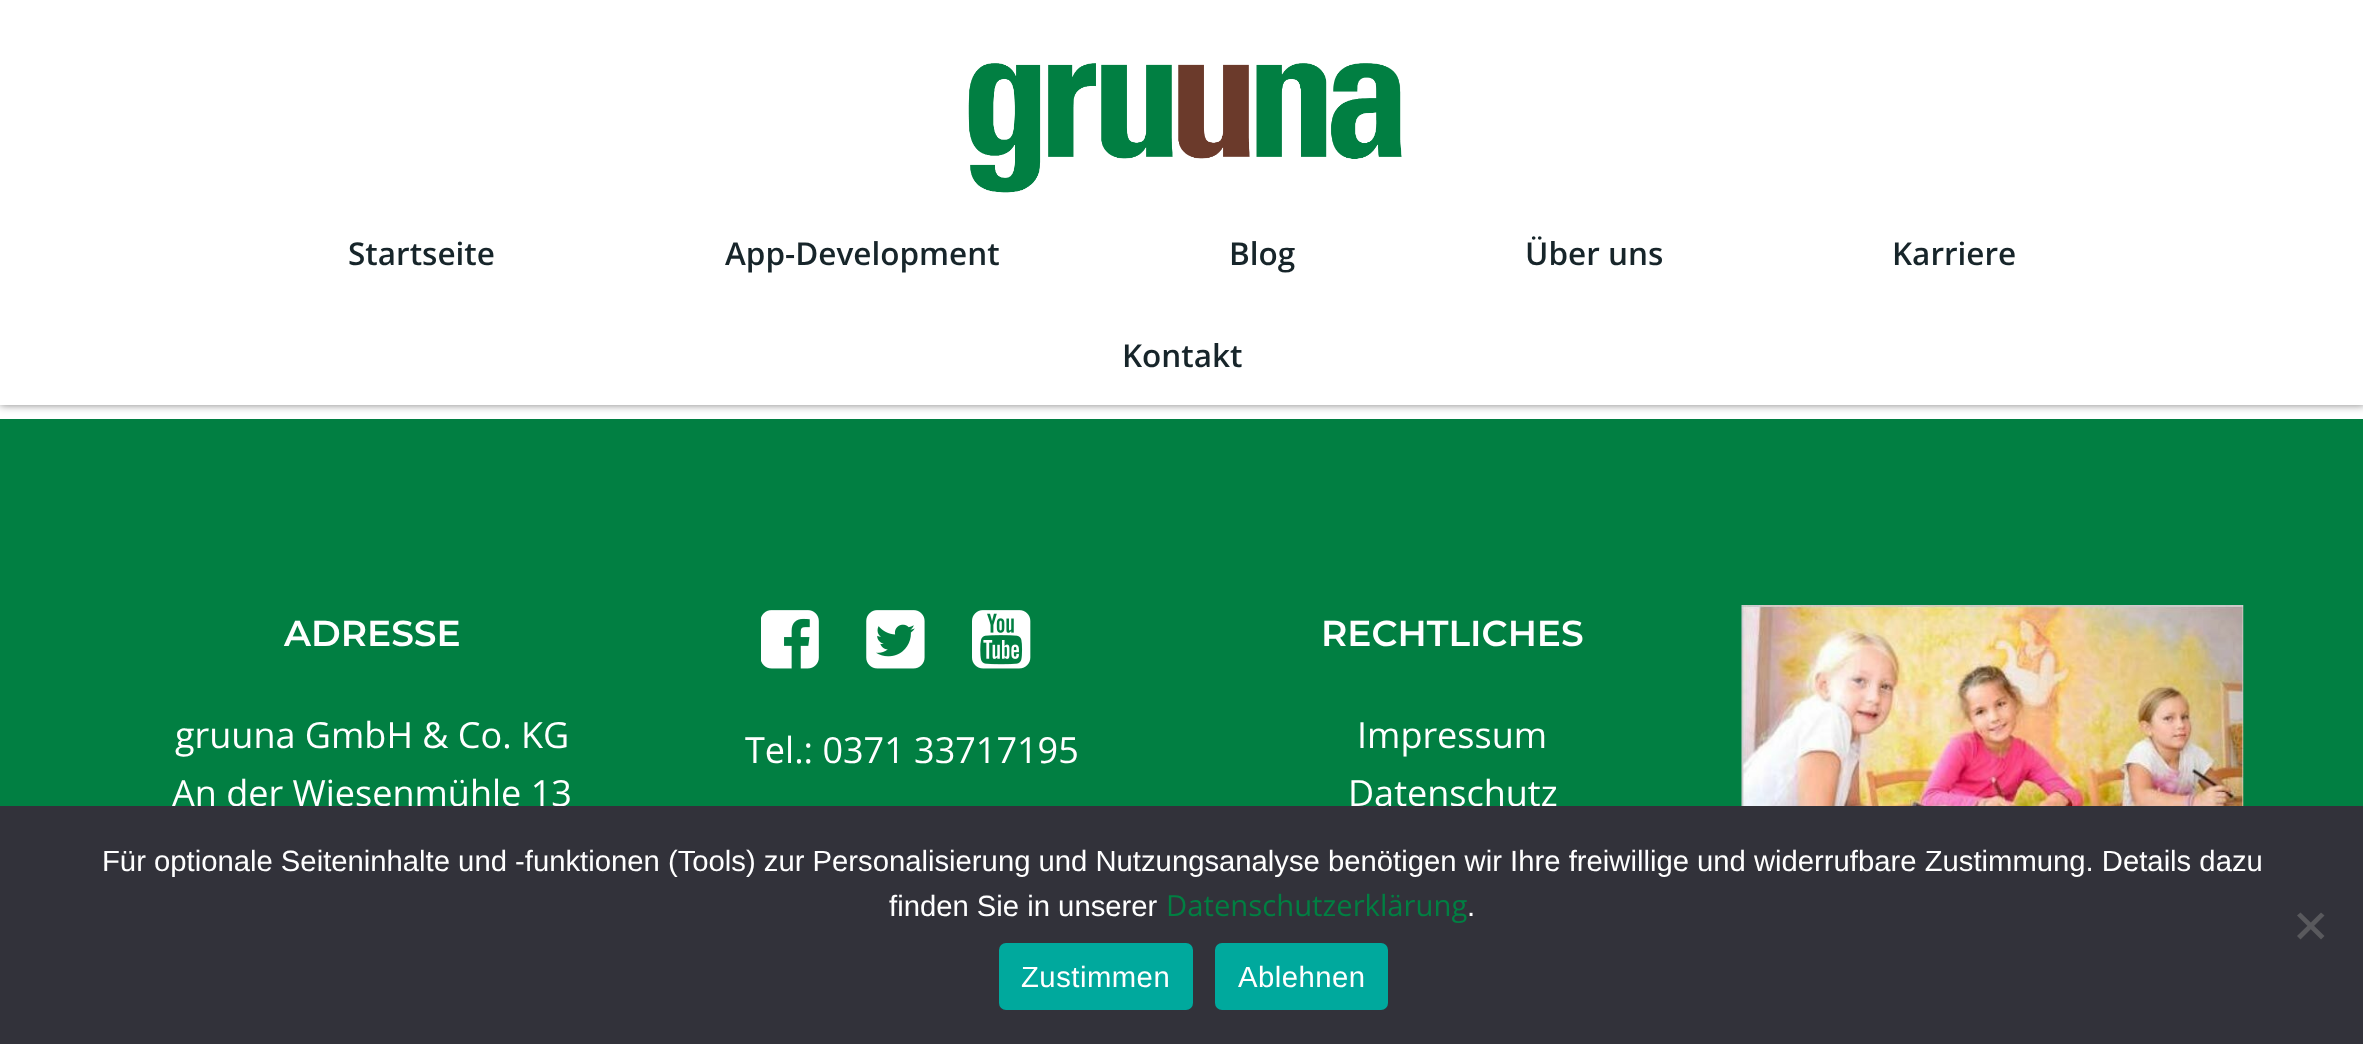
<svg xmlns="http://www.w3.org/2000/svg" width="2363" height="1044">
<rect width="100%" height="100%" fill="#fff"/>
<rect y="419" width="2363" height="387" fill="#017f42"/>
<rect width="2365" height="405" fill="#00000080" filter="blur(4.5px)"/>
<rect width="2363" height="405" fill="#fff"/>
<image x="968" y="63" width="434" height="130" href="media/1.png"/>
<text x="348" y="265" style="font-family:Open Sans;font-size:31.5px;font-weight:600;fill:#17252a">Startseite</text>
<text x="725" y="265" style="font-family:Open Sans;font-size:31.5px;font-weight:600;fill:#17252a">App-Development</text>
<text x="1229" y="265" style="font-family:Open Sans;font-size:31.5px;font-weight:600;fill:#17252a">Blog</text>
<text x="1525" y="265" style="font-family:Open Sans;font-size:31.5px;font-weight:600;fill:#17252a">Über uns</text>
<text x="1892" y="265" style="font-family:Open Sans;font-size:31.5px;font-weight:600;fill:#17252a">Karriere</text>
<text x="1122" y="367" style="font-family:Open Sans;font-size:31.5px;font-weight:600;fill:#17252a">Kontakt</text>
<text x="284" y="646" style="font-family:Montserrat;font-size:36px;font-weight:600;fill:#fff">ADRESSE</text>
<text x="175" y="748" style="font-family:Open Sans;font-size:36px;fill:#fff">gruuna GmbH &amp; Co. KG</text>
<text x="172" y="806" style="font-family:Open Sans;font-size:36px;fill:#fff">An der Wiesenmühle 13</text>
<image x="761" y="610" width="58" height="59" href="media/2.png"/>
<image x="866" y="610" width="59" height="59" href="media/3.png"/>
<image x="972" y="610" width="59" height="59" href="media/4.png"/>
<text x="745" y="763" style="font-family:Open Sans;font-size:36px;fill:#fff">Tel.: 0371 33717195</text>
<text x="1321" y="646" style="font-family:Montserrat;font-size:36px;font-weight:600;fill:#fff">RECHTLICHES</text>
<text x="1357" y="748" style="font-family:Open Sans;font-size:36px;fill:#fff">Impressum</text>
<text x="1348" y="806" style="font-family:Open Sans;font-size:36px;fill:#fff">Datenschutz</text>
<image x="1741" y="605" width="503" height="201" href="media/5.png"/>
<rect y="806" width="2363" height="238" fill="#32323a"/>
<text x="102" y="871" style="font-family:Liberation Sans;font-size:29.25px;fill:#fff">Für optionale Seiteninhalte und -funktionen (Tools) zur Personalisierung und Nutzungsanalyse benötigen wir Ihre freiwillige und widerrufbare Zustimmung. Details dazu</text>
<text x="889" y="916" style="font-family:Liberation Sans;font-size:29.25px;fill:#fff">finden Sie in unserer</text>
<text x="1166" y="916" style="font-family:Open Sans;font-size:29.25px;fill:#017f42">Datenschutzerklärung</text>
<text x="1467" y="916" style="font-family:Liberation Sans;font-size:29.25px;fill:#fff">.</text>
<path d="M2321 912.5l3.5 3l-24 24l-3.5-3.5z" fill="#59595d"/>
<path d="M2297 915.5l3.5-3l24 23.5l-3.5 3.5z" fill="#59595d"/>
<rect x="999" y="943" width="194" height="67" rx="7" fill="#00a99d"/>
<text x="1021" y="987" style="font-family:Liberation Sans;font-size:29.25px;letter-spacing:0.5px;fill:#fff">Zustimmen</text>
<rect x="1215" y="943" width="173" height="67" rx="7" fill="#00a99d"/>
<text x="1238" y="987" style="font-family:Liberation Sans;font-size:29.25px;letter-spacing:0.5px;fill:#fff">Ablehnen</text>
</svg>
